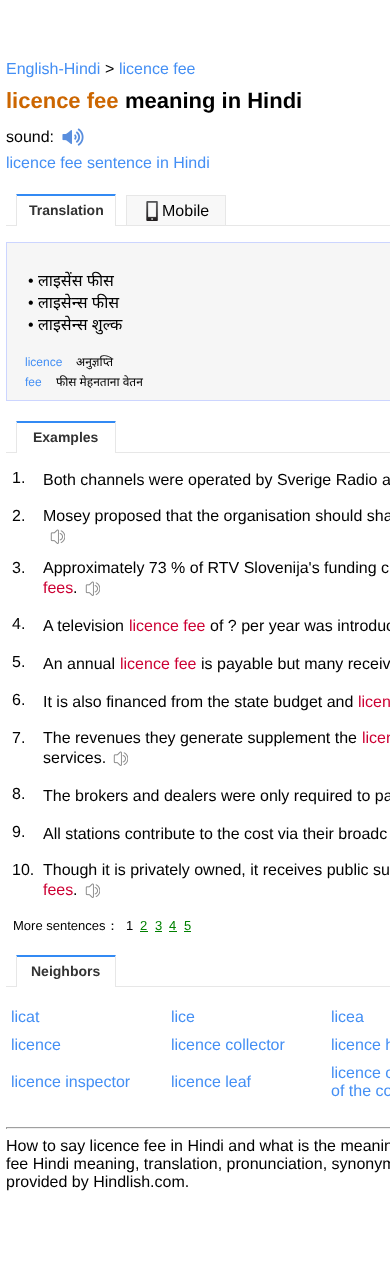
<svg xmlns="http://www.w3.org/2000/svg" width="390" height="1283">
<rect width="100%" height="100%" fill="#fff"/>
<text x="6" y="74" style="font-family:Liberation Sans;font-size:16px;fill:#448ff4">English-Hindi</text>
<text x="105" y="74" style="font-family:Liberation Sans;font-size:16px;fill:#000">&gt;</text>
<text x="119" y="74" style="font-family:Liberation Sans;font-size:16px;fill:#448ff4">licence fee</text>
<text x="6" y="108" style="font-family:Liberation Sans;font-size:22px;font-weight:bold;fill:#c60">licence fee</text>
<text x="125" y="108" style="font-family:Liberation Sans;font-size:22px;font-weight:bold;fill:#000">meaning in Hindi</text>
<text x="6" y="142" style="font-family:Liberation Sans;font-size:16px;fill:#000">sound:</text>
<image x="62" y="128" width="22" height="18" href="media/1.png"/>
<text x="6" y="168" style="font-family:Liberation Sans;font-size:16px;fill:#448ff4">licence fee sentence in Hindi</text>
<rect x="6" y="225" width="384" height="1" fill="#e7e7e7"/>
<rect x="16" y="225" width="100" height="1" fill="#fff"/>
<path d="M16 194h100l-1 2h-98z" fill="#328af4"/>
<path d="M116 194v32h-1v-30z" fill="#e7e7e7"/>
<path d="M16 226v-32l1 2v30z" fill="#e7e7e7"/>
<text x="29" y="215" style="font-family:Liberation Sans;font-size:14px;font-weight:bold;fill:#333">Translation</text>
<rect x="127" y="196" width="98" height="29" fill="#f8f8f8"/>
<rect x="126" y="195" width="100" height="1" fill="#e7e7e7"/>
<rect x="225" y="195" width="1" height="30" fill="#e7e7e7"/>
<rect x="126" y="195" width="1" height="30" fill="#e7e7e7"/>
<image x="146" y="201" width="13" height="20" href="media/2.png"/>
<text x="162" y="216" style="font-family:Liberation Sans;font-size:16px;fill:#000">Mobile</text>
<rect x="6.5" y="242.5" width="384" height="158" fill="#f6f6f6" stroke="#ccd5ff"/>
<text x="28" y="286" style="font-family:Liberation Sans;font-size:16px;fill:#000">•</text>
<text x="38" y="286" style="font-family:Noto Sans;font-size:16px;fill:#000">लाइसेंस फीस</text>
<text x="28" y="308" style="font-family:Liberation Sans;font-size:16px;fill:#000">•</text>
<text x="38" y="308" style="font-family:Noto Sans;font-size:16px;fill:#000">लाइसेन्स फीस</text>
<text x="28" y="330" style="font-family:Liberation Sans;font-size:16px;fill:#000">•</text>
<text x="38" y="330" style="font-family:Noto Sans;font-size:16px;fill:#000">लाइसेन्स शुल्क</text>
<text x="25" y="366" style="font-family:Liberation Sans;font-size:12px;fill:#448ff4">licence</text>
<text x="76" y="366" style="font-family:Noto Sans;font-size:12px;fill:#000">अनुज्ञप्ति</text>
<text x="25" y="386" style="font-family:Liberation Sans;font-size:12px;fill:#448ff4">fee</text>
<text x="56" y="386" style="font-family:Noto Sans;font-size:12px;fill:#000">फीस मेहनताना वेतन</text>
<rect x="6" y="452" width="384" height="1" fill="#e7e7e7"/>
<rect x="16" y="452" width="100" height="1" fill="#fff"/>
<path d="M16 421h100l-1 2h-98z" fill="#328af4"/>
<path d="M116 421v32h-1v-30z" fill="#e7e7e7"/>
<path d="M16 453v-32l1 2v30z" fill="#e7e7e7"/>
<text x="33" y="442" style="font-family:Liberation Sans;font-size:14px;font-weight:bold;fill:#333">Examples</text>
<text x="12" y="483" style="font-family:Liberation Sans;font-size:16px;fill:#000">1.</text>
<text x="43" y="485" style="font-family:Liberation Sans;font-size:16px;fill:#000">Both channels were operated by Sverige Radio a</text>
<text x="12" y="521" style="font-family:Liberation Sans;font-size:16px;fill:#000">2.</text>
<text x="43" y="521" style="font-family:Liberation Sans;font-size:16px;fill:#000">Mosey proposed that the organisation should sha</text>
<image x="50" y="529" width="15" height="15" href="media/3.png"/>
<text x="12" y="573" style="font-family:Liberation Sans;font-size:16px;fill:#000">3.</text>
<text x="43" y="573" style="font-family:Liberation Sans;font-size:16px;fill:#000">Approximately 73 % of RTV Slovenija's funding c</text>
<text x="43" y="593" style="font-family:Liberation Sans;font-size:16px;fill:#c03">fees</text>
<text x="73" y="593" style="font-family:Liberation Sans;font-size:16px;fill:#000">.</text>
<image x="85" y="581" width="15" height="15" href="media/3.png"/>
<text x="12" y="629" style="font-family:Liberation Sans;font-size:16px;fill:#000">4.</text>
<text x="43" y="631" style="font-family:Liberation Sans;font-size:16px;fill:#000">A television</text>
<text x="129" y="631" style="font-family:Liberation Sans;font-size:16px;fill:#c03">licence fee</text>
<text x="210" y="631" style="font-family:Liberation Sans;font-size:16px;fill:#000">of ? per year was introduc</text>
<text x="12" y="667" style="font-family:Liberation Sans;font-size:16px;fill:#000">5.</text>
<text x="43" y="669" style="font-family:Liberation Sans;font-size:16px;fill:#000">An annual</text>
<text x="120" y="669" style="font-family:Liberation Sans;font-size:16px;fill:#c03">licence fee</text>
<text x="201" y="669" style="font-family:Liberation Sans;font-size:16px;fill:#000">is payable but many receiv</text>
<text x="12" y="705" style="font-family:Liberation Sans;font-size:16px;fill:#000">6.</text>
<text x="43" y="707" style="font-family:Liberation Sans;font-size:16px;fill:#000">It is also financed from the state budget and</text>
<text x="358" y="707" style="font-family:Liberation Sans;font-size:16px;fill:#c03">licen</text>
<text x="12" y="743" style="font-family:Liberation Sans;font-size:16px;fill:#000">7.</text>
<text x="43" y="743" style="font-family:Liberation Sans;font-size:16px;fill:#000">The revenues they generate supplement the</text>
<text x="362" y="743" style="font-family:Liberation Sans;font-size:16px;fill:#c03">licen</text>
<text x="43" y="763" style="font-family:Liberation Sans;font-size:16px;fill:#000">services.</text>
<image x="113" y="751" width="15" height="15" href="media/3.png"/>
<text x="12" y="799" style="font-family:Liberation Sans;font-size:16px;fill:#000">8.</text>
<text x="43" y="801" style="font-family:Liberation Sans;font-size:16px;fill:#000">The brokers and dealers were only required to pa</text>
<text x="12" y="837" style="font-family:Liberation Sans;font-size:16px;fill:#000">9.</text>
<text x="43" y="839" style="font-family:Liberation Sans;font-size:16px;fill:#000">All stations contribute to the cost via their broadc</text>
<text x="12" y="875" style="font-family:Liberation Sans;font-size:16px;fill:#000">10.</text>
<text x="43" y="875" style="font-family:Liberation Sans;font-size:16px;fill:#000">Though it is privately owned, it receives public su</text>
<text x="43" y="895" style="font-family:Liberation Sans;font-size:16px;fill:#c03">fees</text>
<text x="73" y="895" style="font-family:Liberation Sans;font-size:16px;fill:#000">.</text>
<image x="85" y="883" width="15" height="15" href="media/3.png"/>
<text x="13" y="930" style="font-family:Liberation Sans;font-size:13px;fill:#000">More sentences</text>
<text x="106" y="930" style="font-family:WenQuanYi Zen Hei;font-size:13px;font-weight:500;fill:#000">：</text>
<text x="126" y="930" style="font-family:Liberation Sans;font-size:13px;fill:#000">1</text>
<text x="140" y="930" style="font-family:Liberation Sans;font-size:13px;fill:#008000">2</text>
<rect x="140" y="931" width="8" height="1" fill="#008000"/>
<text x="155" y="930" style="font-family:Liberation Sans;font-size:13px;fill:#008000">3</text>
<rect x="155" y="931" width="7" height="1" fill="#008000"/>
<text x="169" y="930" style="font-family:Liberation Sans;font-size:13px;fill:#008000">4</text>
<rect x="169" y="931" width="8" height="1" fill="#008000"/>
<text x="184" y="930" style="font-family:Liberation Sans;font-size:13px;fill:#008000">5</text>
<rect x="184" y="931" width="7" height="1" fill="#008000"/>
<rect x="6" y="986" width="384" height="1" fill="#e7e7e7"/>
<rect x="16" y="986" width="100" height="1" fill="#fff"/>
<path d="M16 955h100l-1 2h-98z" fill="#328af4"/>
<path d="M116 955v32h-1v-30z" fill="#e7e7e7"/>
<path d="M16 987v-32l1 2v30z" fill="#e7e7e7"/>
<text x="31" y="976" style="font-family:Liberation Sans;font-size:14px;font-weight:bold;fill:#333">Neighbors</text>
<text x="11" y="1022" style="font-family:Liberation Sans;font-size:16px;fill:#448ff4">licat</text>
<text x="171" y="1022" style="font-family:Liberation Sans;font-size:16px;fill:#448ff4">lice</text>
<text x="331" y="1022" style="font-family:Liberation Sans;font-size:16px;fill:#448ff4">licea</text>
<text x="11" y="1050" style="font-family:Liberation Sans;font-size:16px;fill:#448ff4">licence</text>
<text x="171" y="1050" style="font-family:Liberation Sans;font-size:16px;fill:#448ff4">licence collector</text>
<text x="331" y="1050" style="font-family:Liberation Sans;font-size:16px;fill:#448ff4">licence h</text>
<text x="11" y="1087" style="font-family:Liberation Sans;font-size:16px;fill:#448ff4">licence inspector</text>
<text x="171" y="1087" style="font-family:Liberation Sans;font-size:16px;fill:#448ff4">licence leaf</text>
<text x="331" y="1078" style="font-family:Liberation Sans;font-size:16px;fill:#448ff4">licence o</text>
<text x="331" y="1096" style="font-family:Liberation Sans;font-size:16px;fill:#448ff4">of the co</text>
<rect x="6" y="1127" width="384" height="1" fill="#9f9f9f"/>
<rect x="6" y="1128" width="384" height="1" fill="#eee"/>
<rect x="6" y="1127" width="1" height="2" fill="#9f9f9f"/>
<text x="6" y="1151" style="font-family:Liberation Sans;font-size:16px;fill:#000">How to say licence fee in Hindi and what is the meanin</text>
<text x="6" y="1169" style="font-family:Liberation Sans;font-size:16px;fill:#000">fee Hindi meaning, translation, pronunciation, synonym</text>
<text x="6" y="1187" style="font-family:Liberation Sans;font-size:16px;fill:#000">provided by Hindlish.com.</text>
</svg>
